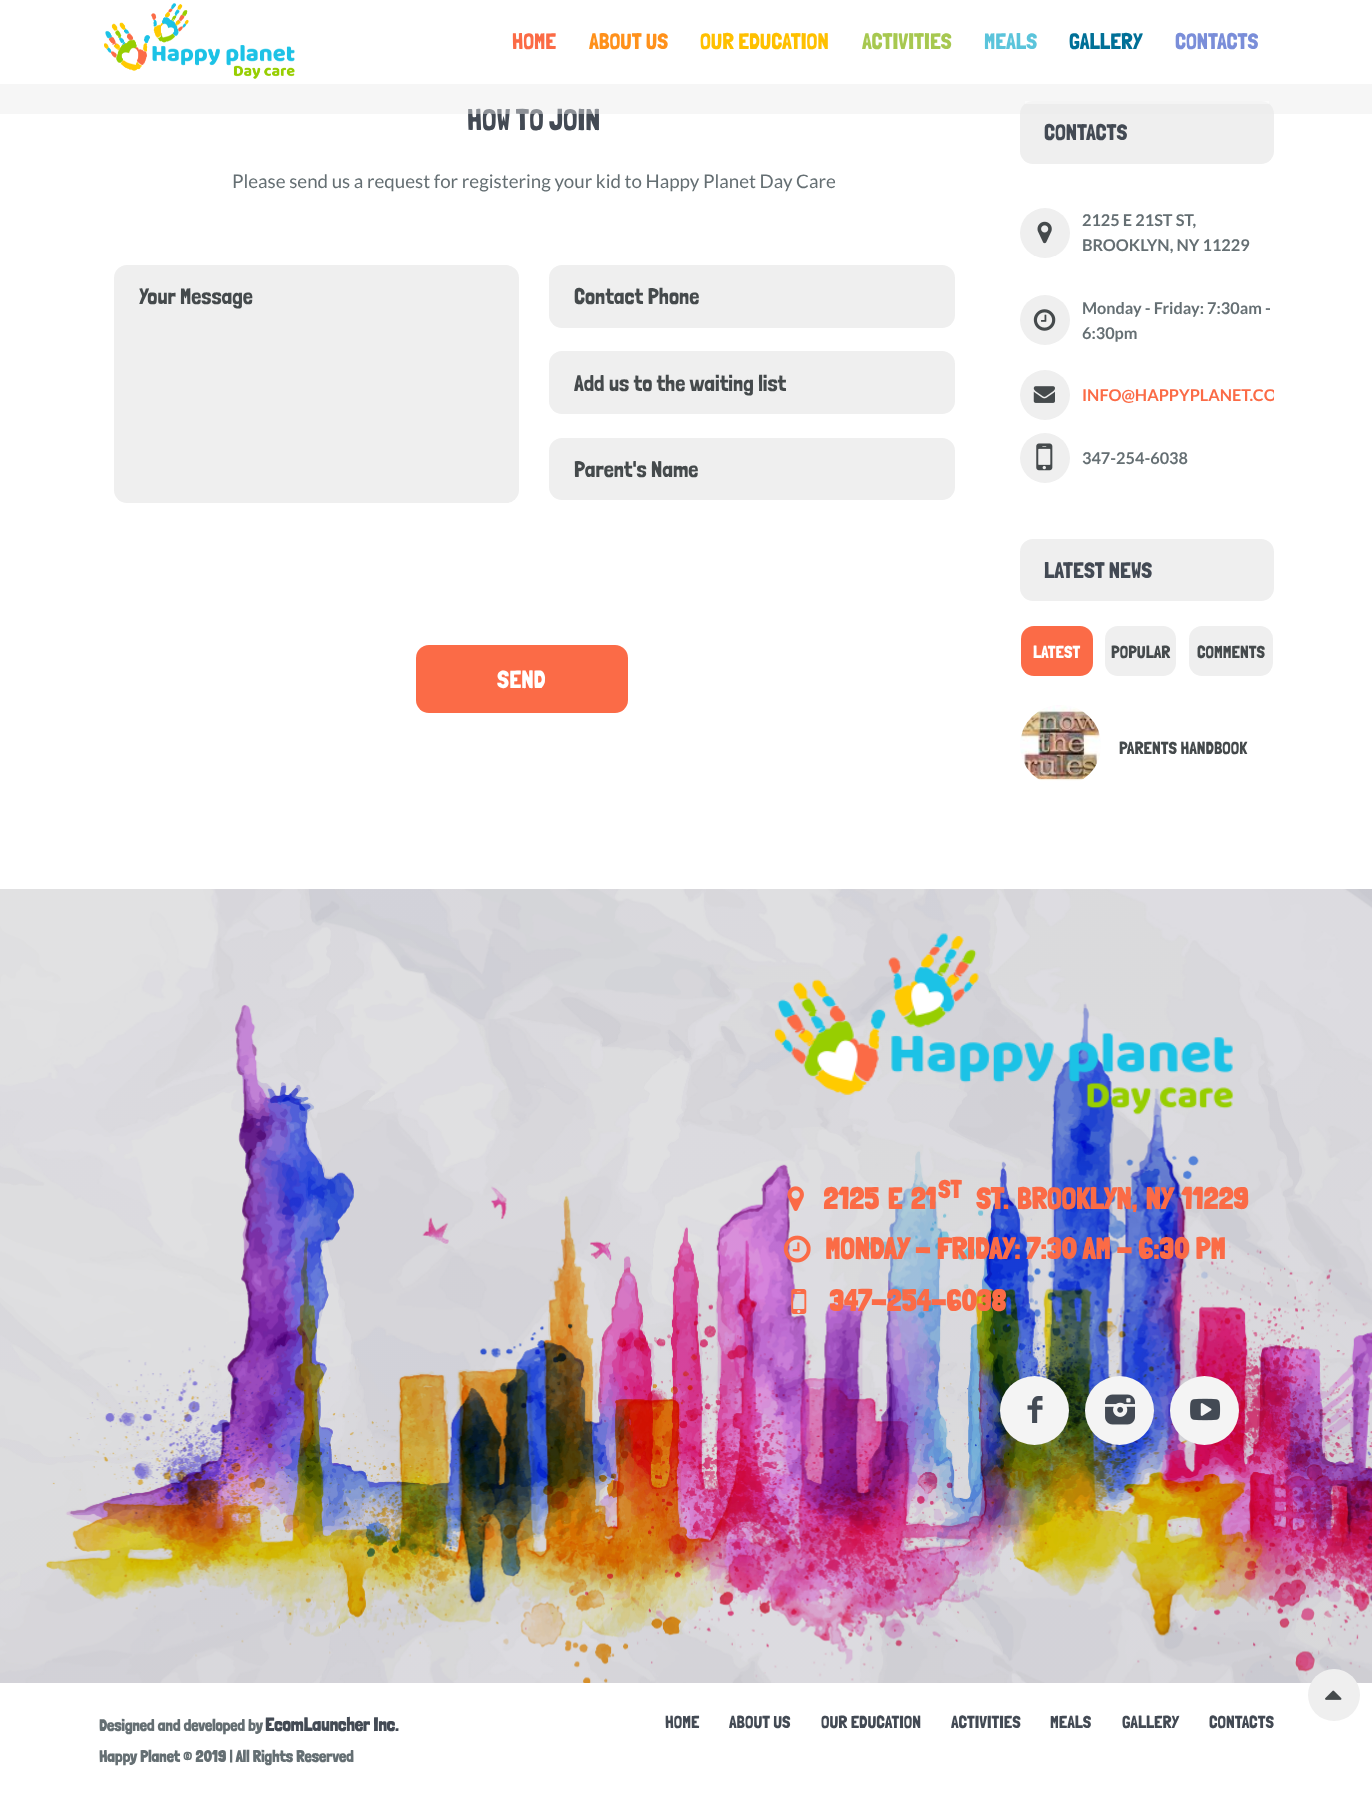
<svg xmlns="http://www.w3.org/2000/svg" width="1372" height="1796">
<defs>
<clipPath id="clip1"><rect x="1020" y="101" width="254" height="438"/></clipPath>
</defs>
<rect width="100%" height="100%" fill="#fff"/>
<image x="104" y="3" width="191" height="76" href="media/1.png"/>
<text x="512" y="49" style="font-family:Londrina Solid;font-size:22.5px;fill:#fb6b46">HOME</text>
<text x="589" y="49" style="font-family:Londrina Solid;font-size:22.5px;fill:#ff911b">ABOUT US</text>
<text x="700" y="49" style="font-family:Londrina Solid;font-size:22.5px;fill:#ffc000">OUR EDUCATION</text>
<text x="862" y="49" style="font-family:Londrina Solid;font-size:22.5px;fill:#a7c850">ACTIVITIES</text>
<text x="984" y="49" style="font-family:Londrina Solid;font-size:22.5px;fill:#5bc4db">MEALS</text>
<text x="1069" y="49" style="font-family:Londrina Solid;font-size:22.5px;fill:#007097">GALLERY</text>
<text x="1175" y="49" style="font-family:Londrina Solid;font-size:22.5px;fill:#7a8ed9">CONTACTS</text>
<text x="467" y="130" style="font-family:Londrina Solid;font-size:30px;fill:#434a54">HOW TO JOIN</text>
<rect x="1020" y="101" width="254" height="63" rx="13" fill="#efefef"/>
<rect y="84" width="1372" height="30" fill="#eaeaea40"/>
<rect y="84" width="1372" height="30" fill="#eaeaea40"/>
<rect x="1025" y="101" width="244" height="3" fill="#ffffff40"/>
<rect x="1025" y="101" width="244" height="3" fill="#ffffff40"/>
<text x="232" y="188" style="font-family:Lato;font-size:18.75px;fill:#656f73">Please send us a request for registering your kid to Happy Planet Day Care</text>
<rect x="114" y="265" width="405" height="238" rx="13" fill="#efefef"/>
<text x="139" y="304" style="font-family:Londrina Solid;font-size:22.5px;fill:#454a4c">Your Message</text>
<rect x="549" y="265" width="406" height="63" rx="13" fill="#efefef"/>
<text x="574" y="304" style="font-family:Londrina Solid;font-size:22.5px;fill:#454a4c">Contact Phone</text>
<rect x="549" y="351" width="406" height="63" rx="13" fill="#efefef"/>
<text x="574" y="391" style="font-family:Londrina Solid;font-size:22.5px;fill:#454a4c">Add us to the waiting list</text>
<rect x="549" y="438" width="406" height="62" rx="13" fill="#efefef"/>
<text x="574" y="477" style="font-family:Londrina Solid;font-size:22.5px;fill:#454a4c">Parent's Name</text>
<rect x="416" y="645" width="212" height="68" rx="13" fill="#fb6b47"/>
<text x="497" y="688" style="font-family:Londrina Solid;font-size:25px;fill:#fff">SEND</text>
<text x="1044" y="140" style="font-family:Londrina Solid;font-size:22.5px;fill:#434a54">CONTACTS</text>
<circle cx="1045" cy="233" r="25" fill="#efefef"/>
<image x="1037" y="221" width="15" height="23" href="media/2.png"/>
<text x="1082" y="226" style="font-family:Lato;font-size:16.25px;font-weight:bold;fill:#656f73">2125 E 21ST ST,</text>
<text x="1082" y="251" style="font-family:Lato;font-size:16.25px;font-weight:bold;fill:#656f73">BROOKLYN, NY 11229</text>
<circle cx="1045" cy="320" r="25" fill="#efefef"/>
<image x="1033" y="309" width="23" height="22" href="media/3.png"/>
<text x="1082" y="314" style="font-family:Lato;font-size:16.25px;font-weight:bold;fill:#656f73">Monday - Friday: 7:30am -</text>
<text x="1082" y="339" style="font-family:Lato;font-size:16.25px;font-weight:bold;fill:#656f73">6:30pm</text>
<circle cx="1045" cy="395" r="25" fill="#efefef"/>
<image x="1033" y="386" width="22" height="17" href="media/4.png"/>
<g clip-path="url(#clip1)">
<text x="1082" y="401" style="font-family:Lato;font-size:16.25px;font-weight:bold;fill:#fb6b46">INFO@HAPPYPLANET.CO</text>
</g>
<circle cx="1045" cy="458" r="25" fill="#efefef"/>
<image x="1036" y="443" width="17" height="28" href="media/5.png"/>
<text x="1082" y="464" style="font-family:Lato;font-size:16.25px;font-weight:bold;fill:#656f73">347-254-6038</text>
<rect x="1020" y="539" width="254" height="62" rx="13" fill="#efefef"/>
<text x="1044" y="578" style="font-family:Londrina Solid;font-size:22.5px;fill:#434a54">LATEST NEWS</text>
<rect x="1021" y="626" width="72" height="50" rx="13" fill="#fb6b47"/>
<text x="1033" y="658" style="font-family:Londrina Solid;font-size:17.5px;fill:#fff">LATEST</text>
<rect x="1105" y="626" width="71" height="50" rx="13" fill="#efefef"/>
<text x="1111" y="658" style="font-family:Londrina Solid;font-size:17.5px;fill:#454a4c">POPULAR</text>
<rect x="1189" y="626" width="84" height="50" rx="13" fill="#efefef"/>
<text x="1197" y="658" style="font-family:Londrina Solid;font-size:17.5px;fill:#454a4c">COMMENTS</text>
<image x="1020" y="705" width="81" height="76" href="media/6.png"/>
<text x="1119" y="754" style="font-family:Londrina Solid;font-size:17.5px;fill:#454a4c">PARENTS HANDBOOK</text>
<image x="0" y="889" width="1372" height="794" href="media/8.png"/>
<circle cx="1334" cy="1695" r="26" fill="#efefef"/>
<image x="1325" y="1690" width="17" height="10" href="media/7.png"/>
<image x="774" y="933" width="460" height="182" href="media/9.png"/>
<image x="787" y="1186" width="17" height="25" href="media/10.png"/>
<text x="823" y="1209" word-spacing="2.5" style="font-family:Londrina Solid;font-size:30px;font-weight:bold;fill:#fb6b46">2125 E 21</text>
<text x="938" y="1198" style="font-family:Londrina Solid;font-size:25px;font-weight:bold;fill:#fb6b46">ST</text>
<text x="976" y="1209" word-spacing="2.5" style="font-family:Londrina Solid;font-size:30px;font-weight:bold;fill:#fb6b46">ST. BROOKLYN, NY 11229</text>
<image x="783" y="1235" width="28" height="28" href="media/11.png"/>
<text x="825" y="1259" style="font-family:Londrina Solid;font-size:30px;font-weight:bold;fill:#fb6b46">MONDAY - FRIDAY: 7:30 AM - 6:30 PM</text>
<image x="791" y="1289" width="16" height="25" href="media/12.png"/>
<text x="829" y="1311" style="font-family:Londrina Solid;font-size:30px;font-weight:bold;fill:#fb6b46">347-254-6038</text>
<circle cx="1034.5" cy="1410.5" r="34.5" fill="#f4f4f4"/>
<image x="1027" y="1396" width="16" height="27" href="media/13.png"/>
<circle cx="1119.5" cy="1410.5" r="34.5" fill="#f4f4f4"/>
<image x="1105" y="1394" width="30" height="31" href="media/14.png"/>
<circle cx="1204.5" cy="1410.5" r="34.5" fill="#f4f4f4"/>
<image x="1190" y="1398" width="31" height="23" href="media/15.png"/>
<text x="99" y="1731" style="font-family:Londrina Solid;font-size:16.25px;font-weight:bold;fill:#656f73">Designed and developed by</text>
<text x="265" y="1731" style="font-family:Londrina Solid;font-size:18.75px;font-weight:bold;fill:#434a54">EcomLauncher Inc.</text>
<text x="99" y="1762" style="font-family:Londrina Solid;font-size:16.25px;font-weight:bold;fill:#656f73">Happy Planet © 2019 | All Rights Reserved</text>
<text x="665" y="1728" style="font-family:Londrina Solid;font-size:17.5px;fill:#434a54">HOME</text>
<text x="729" y="1728" style="font-family:Londrina Solid;font-size:17.5px;fill:#434a54">ABOUT US</text>
<text x="821" y="1728" style="font-family:Londrina Solid;font-size:17.5px;fill:#434a54">OUR EDUCATION</text>
<text x="951" y="1728" style="font-family:Londrina Solid;font-size:17.5px;fill:#434a54">ACTIVITIES</text>
<text x="1050" y="1728" style="font-family:Londrina Solid;font-size:17.5px;fill:#434a54">MEALS</text>
<text x="1122" y="1728" style="font-family:Londrina Solid;font-size:17.5px;fill:#434a54">GALLERY</text>
<text x="1209" y="1728" style="font-family:Londrina Solid;font-size:17.5px;fill:#434a54">CONTACTS</text>
</svg>
